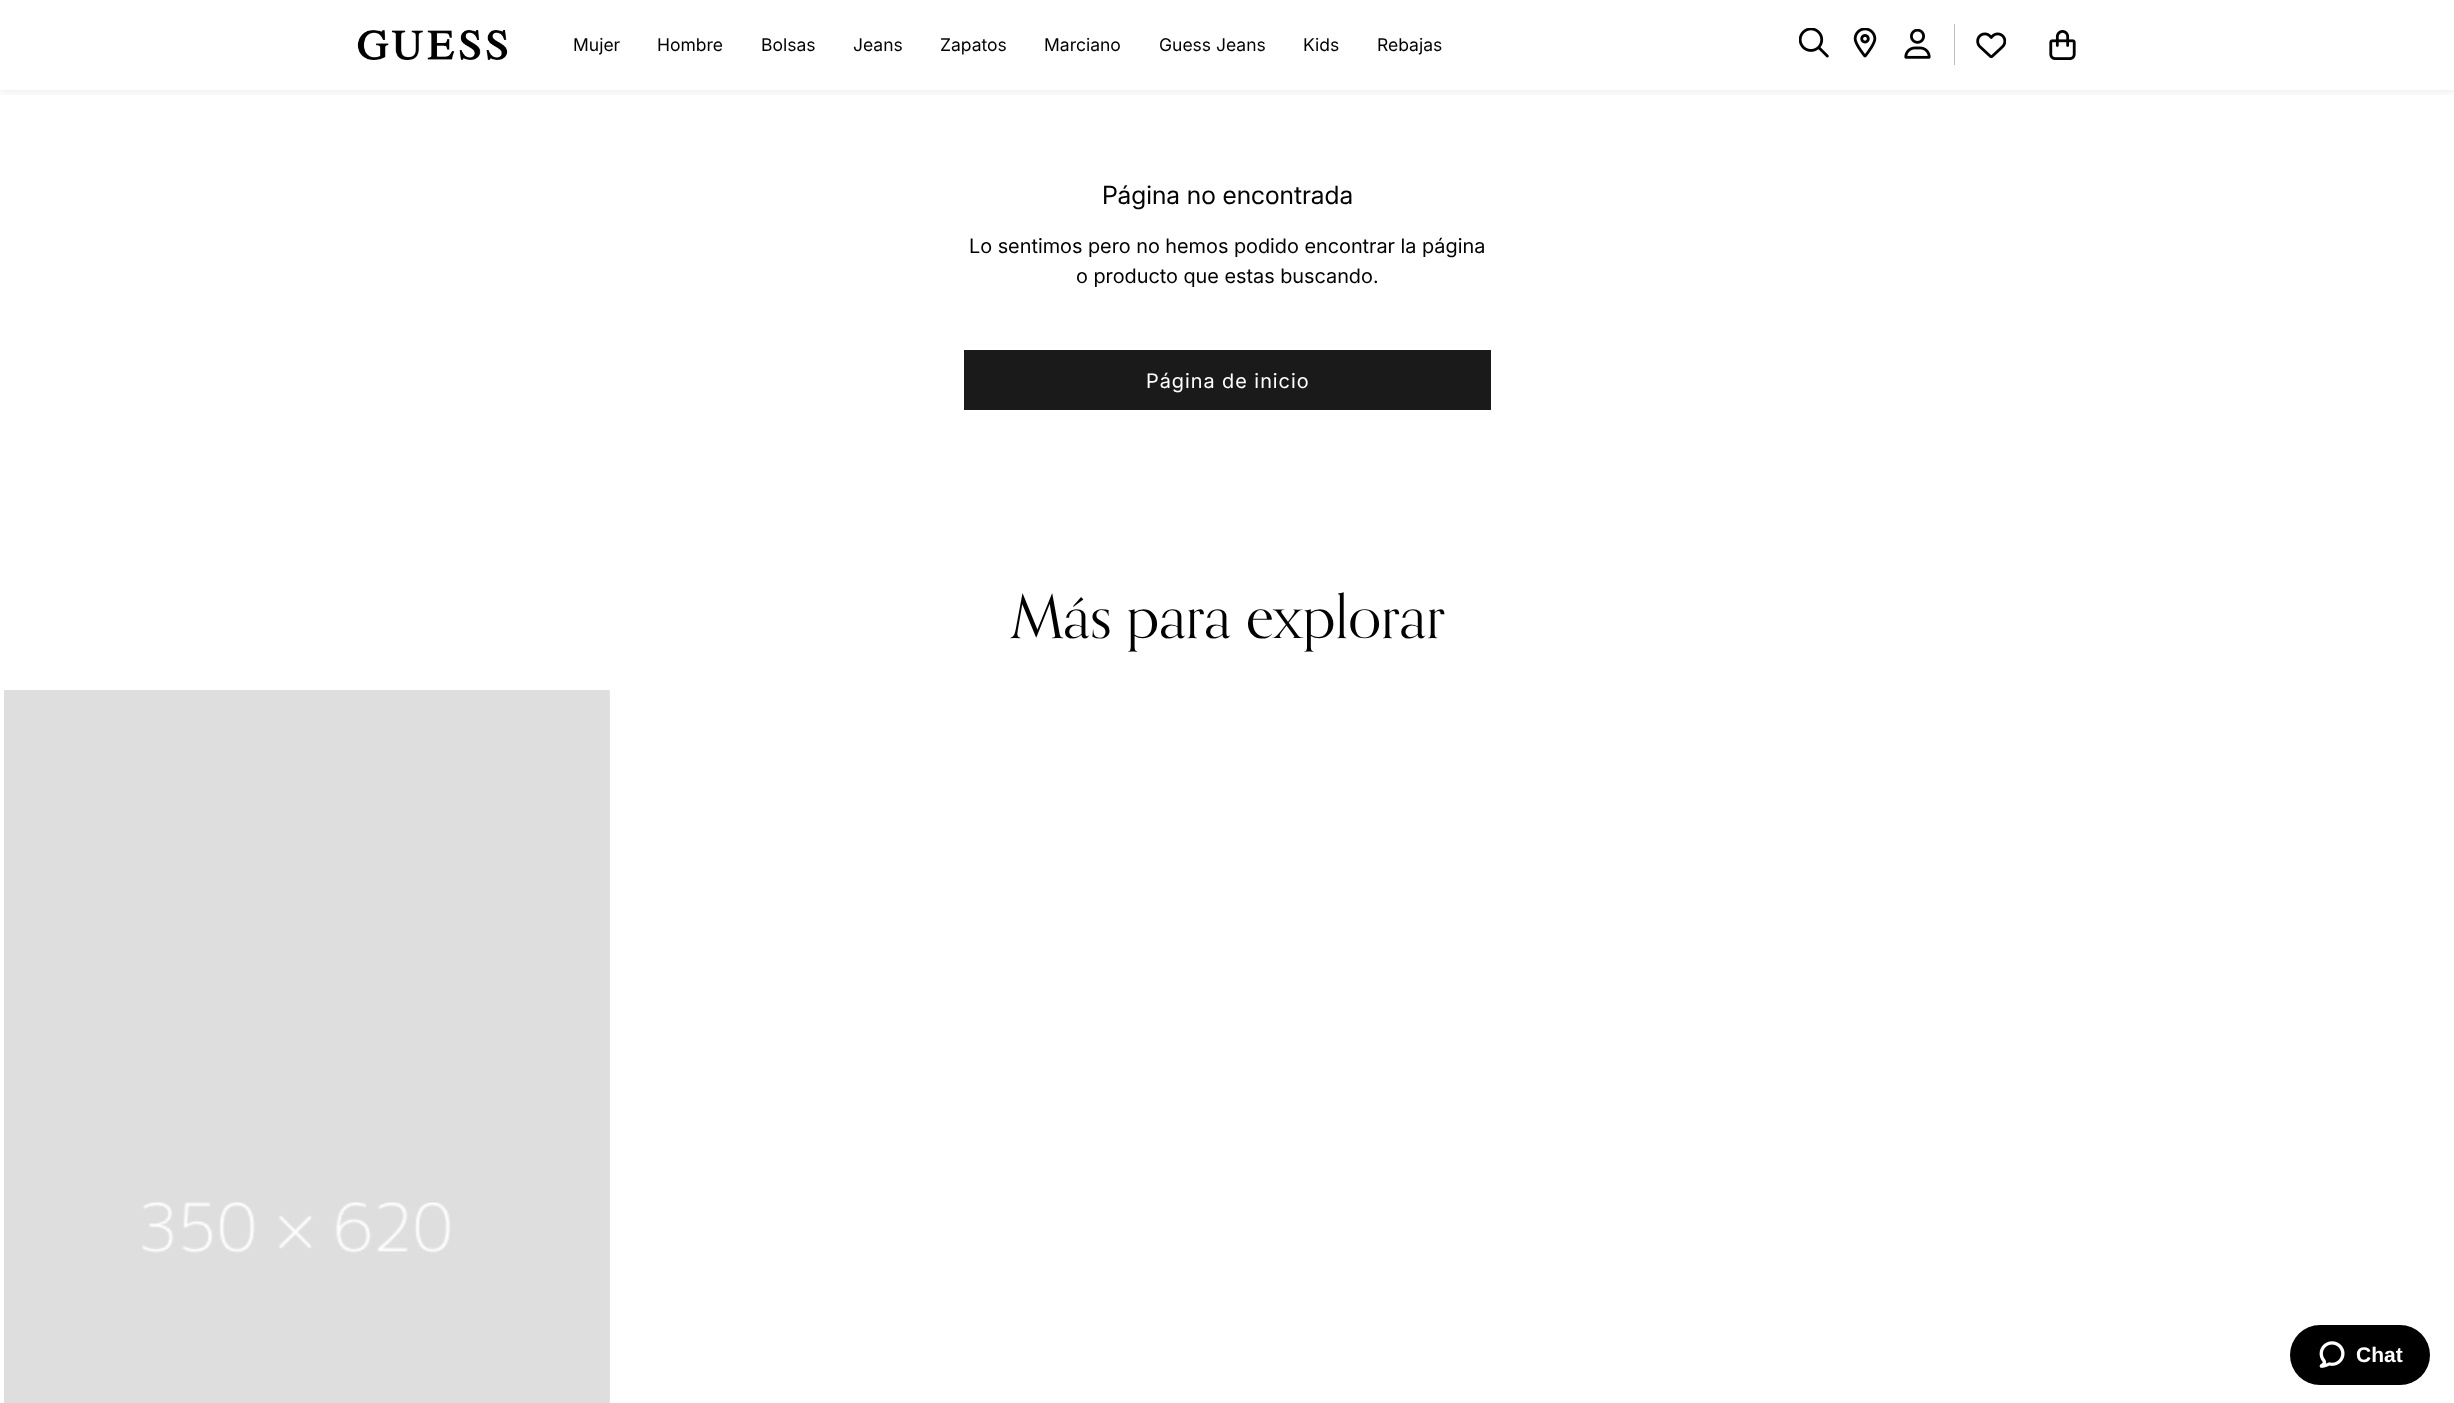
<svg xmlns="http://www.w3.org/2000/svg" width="2454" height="1403">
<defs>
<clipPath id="clip1"><rect x="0" y="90" width="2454" height="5"/></clipPath>
</defs>
<rect width="100%" height="100%" fill="#fff"/>
<g clip-path="url(#clip1)">
<rect width="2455" height="90" fill="#0000001a" filter="blur(6px)"/>
</g>
<image x="357" y="30" width="151" height="30" href="media/1.png"/>
<text x="573" y="51" style="font-family:'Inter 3';font-size:17.5px;fill:#010101">Mujer</text>
<text x="657" y="51" style="font-family:'Inter 3';font-size:17.5px;fill:#010101">Hombre</text>
<text x="761" y="51" style="font-family:'Inter 3';font-size:17.5px;fill:#010101">Bolsas</text>
<text x="853" y="51" style="font-family:'Inter 3';font-size:17.5px;fill:#010101">Jeans</text>
<text x="940" y="51" style="font-family:'Inter 3';font-size:17.5px;fill:#010101">Zapatos</text>
<text x="1044" y="51" style="font-family:'Inter 3';font-size:17.5px;fill:#010101">Marciano</text>
<text x="1159" y="51" style="font-family:'Inter 3';font-size:17.5px;fill:#010101">Guess Jeans</text>
<text x="1303" y="51" style="font-family:'Inter 3';font-size:17.5px;fill:#010101">Kids</text>
<text x="1377" y="51" style="font-family:'Inter 3';font-size:17.5px;fill:#010101">Rebajas</text>
<image x="1799" y="28" width="30" height="30" href="media/2.png"/>
<image x="1853" y="28" width="24" height="30" href="media/3.png"/>
<image x="1904" y="29" width="27" height="30" href="media/4.png"/>
<rect x="1954" y="24" width="1" height="41" fill="#bdbec0"/>
<image x="1976" y="32" width="30" height="27" href="media/5.png"/>
<image x="2049" y="30" width="27" height="30" href="media/6.png"/>
<text x="1102" y="204" style="font-family:Inter;font-size:25px;fill:#010101">Página no encontrada</text>
<text x="969" y="253" style="font-family:'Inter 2';font-size:20px;fill:#010101">Lo sentimos pero no hemos podido encontrar la página</text>
<text x="1076" y="283" style="font-family:'Inter 2';font-size:20px;fill:#010101">o producto que estas buscando.</text>
<rect x="964" y="350" width="527" height="60" fill="#1a1a1a"/>
<text x="1146" y="388" style="font-family:'Inter 2';font-size:20px;letter-spacing:1px;fill:#fff">Página de inicio</text>
<text x="1011" y="638" style="font-family:'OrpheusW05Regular';font-size:60px;fill:#010101">Más para explorar</text>
<image x="4" y="690" width="606" height="713" href="media/7.png"/>
<rect x="2290" y="1325" width="140" height="60" rx="30" fill="#000"/>
<image x="2319" y="1341" width="26" height="27" href="media/8.png"/>
<text x="2356" y="1362" style="font-family:Liberation Sans;font-size:21px;font-weight:bold;fill:#fff">Chat</text>
</svg>
